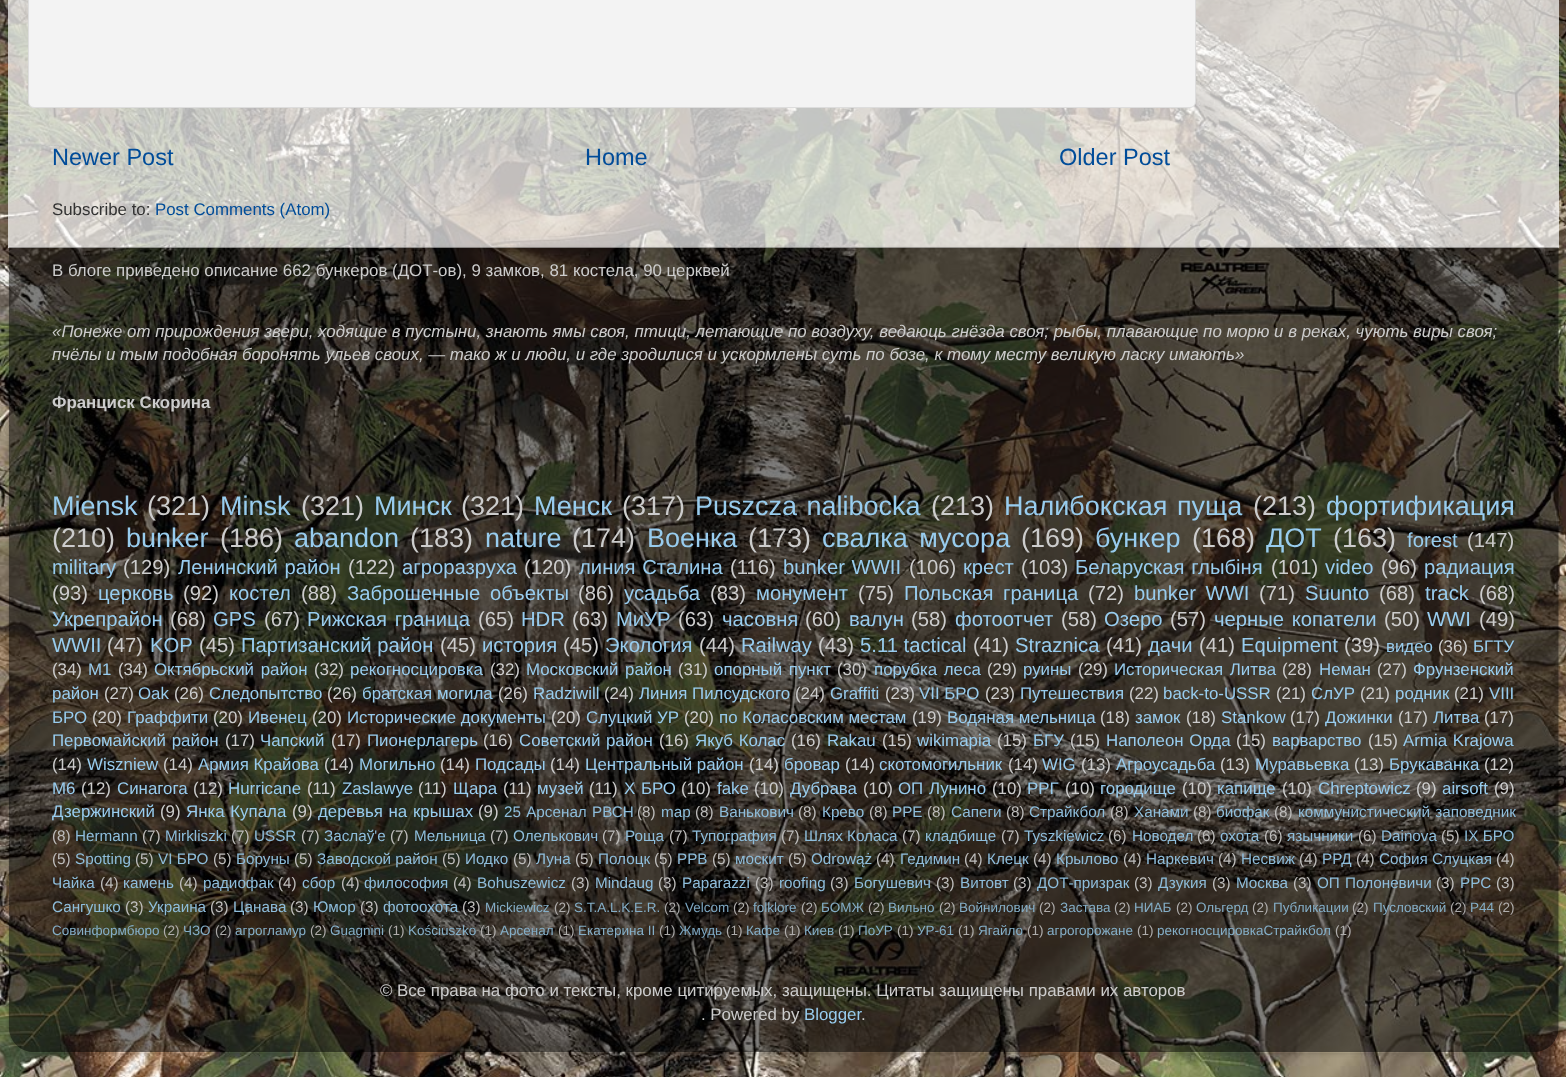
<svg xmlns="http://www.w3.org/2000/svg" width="1566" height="1077">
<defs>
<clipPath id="clip1"><path d="M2 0h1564v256h-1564zm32-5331h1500c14 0 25 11 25 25v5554h-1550v-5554c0-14 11-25 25-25z" clip-rule="evenodd"/></clipPath>
<clipPath id="clip2"><path d="M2 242h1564v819h-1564zm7 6h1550v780c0 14-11 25-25 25h-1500c-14 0-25-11-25-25z" clip-rule="evenodd"/></clipPath>
</defs>
<rect width="100%" height="100%" fill="#fff"/>
<image x="0" y="0" width="1566" height="1077" href="media/1.png"/>
<g clip-path="url(#clip1)">
<rect x="9" y="-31" width="1550" height="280" rx="25" fill="#00000026" filter="blur(2px)"/>
</g>
<rect x="8" width="1551" height="248" fill="#ffffffb3"/>
<rect x="28.5" y="-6.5" width="1167" height="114" rx="5.5" fill="#f3f3f3" stroke="#ddd"/>
<text x="52" y="165" style="font-family:Liberation Sans;font-size:23.5px;fill:#004c99">Newer Post</text>
<text x="585" y="165" style="font-family:Liberation Sans;font-size:23.5px;fill:#004c99">Home</text>
<text x="1059" y="165" style="font-family:Liberation Sans;font-size:23.5px;fill:#004c99">Older Post</text>
<text x="52" y="215" style="font-family:Liberation Sans;font-size:16.88px;fill:#333">Subscribe to:</text>
<text x="155" y="215" style="font-family:Liberation Sans;font-size:16.88px;fill:#004c99">Post Comments (Atom)</text>
<g clip-path="url(#clip2)">
<rect x="9" y="249" width="1550" height="805" rx="25" fill="#00000026" filter="blur(2px)"/>
</g>
<image x="8" y="247" width="1551" height="806" href="media/2.png"/>
<text x="52" y="276" style="font-family:Liberation Sans;font-size:16.88px;fill:#ccc">В блоге приведено описание 662 бункеров (ДОТ-ов), 9 замков, 81 костела, 90 церквей</text>
<text x="52" y="337" style="font-family:Liberation Sans;font-size:16.88px;font-style:italic;fill:#ccc">«Понеже от прирождения звери, ходящие в пустыни, знають ямы своя, птици, летающие по воздуху, ведаюць гнёзда своя; рыбы, плавающие по морю и в реках, чують виры своя;</text>
<text x="52" y="360" style="font-family:Liberation Sans;font-size:16.88px;font-style:italic;fill:#ccc">пчёлы и тым подобная боронять ульев своих, — тако ж и люди, и где зродилися и ускормлены суть по бозе, к тому месту великую ласку имають»</text>
<text x="52" y="408" style="font-family:Liberation Sans;font-size:16.88px;font-weight:bold;fill:#ccc">Франциск Скорина</text>
<text x="52" y="515" style="font-family:Liberation Sans;font-size:27px;fill:#98ccee">Miensk</text>
<text x="147" y="515" style="font-family:Liberation Sans;font-size:27px;fill:#ccc">(321)</text>
<text x="220" y="515" style="font-family:Liberation Sans;font-size:27px;fill:#98ccee">Minsk</text>
<text x="301" y="515" style="font-family:Liberation Sans;font-size:27px;fill:#ccc">(321)</text>
<text x="374" y="515" style="font-family:Liberation Sans;font-size:27px;fill:#98ccee">Минск</text>
<text x="461" y="515" style="font-family:Liberation Sans;font-size:27px;fill:#ccc">(321)</text>
<text x="534" y="515" style="font-family:Liberation Sans;font-size:27px;fill:#98ccee">Менск</text>
<text x="622" y="515" style="font-family:Liberation Sans;font-size:27px;fill:#ccc">(317)</text>
<text x="695" y="515" word-spacing="2" style="font-family:Liberation Sans;font-size:27px;fill:#98ccee">Puszcza nalibocka</text>
<text x="931" y="515" style="font-family:Liberation Sans;font-size:27px;fill:#ccc">(213)</text>
<text x="1004" y="515" word-spacing="2" style="font-family:Liberation Sans;font-size:27px;fill:#98ccee">Налибокская пуща</text>
<text x="1253" y="515" style="font-family:Liberation Sans;font-size:27px;fill:#ccc">(213)</text>
<text x="1326" y="515" style="font-family:Liberation Sans;font-size:27px;fill:#98ccee">фортификация</text>
<text x="52" y="547" style="font-family:Liberation Sans;font-size:27px;fill:#ccc">(210)</text>
<text x="126" y="547" style="font-family:Liberation Sans;font-size:27px;fill:#98ccee">bunker</text>
<text x="220" y="547" style="font-family:Liberation Sans;font-size:27px;fill:#ccc">(186)</text>
<text x="294" y="547" style="font-family:Liberation Sans;font-size:27px;fill:#98ccee">abandon</text>
<text x="410" y="547" style="font-family:Liberation Sans;font-size:27px;fill:#ccc">(183)</text>
<text x="485" y="547" style="font-family:Liberation Sans;font-size:27px;fill:#98ccee">nature</text>
<text x="572" y="547" style="font-family:Liberation Sans;font-size:27px;fill:#ccc">(174)</text>
<text x="647" y="547" style="font-family:Liberation Sans;font-size:27px;fill:#98ccee">Военка</text>
<text x="748" y="547" style="font-family:Liberation Sans;font-size:27px;fill:#ccc">(173)</text>
<text x="822" y="547" word-spacing="4" style="font-family:Liberation Sans;font-size:27px;fill:#98ccee">свалка мусора</text>
<text x="1021" y="547" style="font-family:Liberation Sans;font-size:27px;fill:#ccc">(169)</text>
<text x="1095" y="547" style="font-family:Liberation Sans;font-size:27px;fill:#98ccee">бункер</text>
<text x="1192" y="547" style="font-family:Liberation Sans;font-size:27px;fill:#ccc">(168)</text>
<text x="1266" y="547" style="font-family:Liberation Sans;font-size:27px;fill:#98ccee">ДОТ</text>
<text x="1333" y="547" style="font-family:Liberation Sans;font-size:27px;fill:#ccc">(163)</text>
<text x="1407" y="547" style="font-family:Liberation Sans;font-size:20.25px;fill:#98ccee">forest</text>
<text x="1467" y="547" style="font-family:Liberation Sans;font-size:20.25px;fill:#ccc">(147)</text>
<text x="52" y="574" style="font-family:Liberation Sans;font-size:20.25px;fill:#98ccee">military</text>
<text x="123" y="574" style="font-family:Liberation Sans;font-size:20.25px;fill:#ccc">(129)</text>
<text x="178" y="574" word-spacing="1" style="font-family:Liberation Sans;font-size:20.25px;fill:#98ccee">Ленинский район</text>
<text x="348" y="574" style="font-family:Liberation Sans;font-size:20.25px;fill:#ccc">(122)</text>
<text x="402" y="574" style="font-family:Liberation Sans;font-size:20.25px;fill:#98ccee">агроразруха</text>
<text x="524" y="574" style="font-family:Liberation Sans;font-size:20.25px;fill:#ccc">(120)</text>
<text x="579" y="574" word-spacing="1" style="font-family:Liberation Sans;font-size:20.25px;fill:#98ccee">линия Сталина</text>
<text x="730" y="574" style="font-family:Liberation Sans;font-size:20.25px;fill:#ccc">(116)</text>
<text x="783" y="574" word-spacing="1" style="font-family:Liberation Sans;font-size:20.25px;fill:#98ccee">bunker WWII</text>
<text x="909" y="574" style="font-family:Liberation Sans;font-size:20.25px;fill:#ccc">(106)</text>
<text x="963" y="574" style="font-family:Liberation Sans;font-size:20.25px;fill:#98ccee">крест</text>
<text x="1021" y="574" style="font-family:Liberation Sans;font-size:20.25px;fill:#ccc">(103)</text>
<text x="1075" y="574" word-spacing="1" style="font-family:Liberation Sans;font-size:20.25px;fill:#98ccee">Беларуская глыбіня</text>
<text x="1271" y="574" style="font-family:Liberation Sans;font-size:20.25px;fill:#ccc">(101)</text>
<text x="1325" y="574" style="font-family:Liberation Sans;font-size:20.25px;fill:#98ccee">video</text>
<text x="1381" y="574" style="font-family:Liberation Sans;font-size:20.25px;fill:#ccc">(96)</text>
<text x="1424" y="574" style="font-family:Liberation Sans;font-size:20.25px;fill:#98ccee">радиация</text>
<text x="52" y="600" style="font-family:Liberation Sans;font-size:20.25px;fill:#ccc">(93)</text>
<text x="98" y="600" style="font-family:Liberation Sans;font-size:20.25px;fill:#98ccee">церковь</text>
<text x="183" y="600" style="font-family:Liberation Sans;font-size:20.25px;fill:#ccc">(92)</text>
<text x="229" y="600" style="font-family:Liberation Sans;font-size:20.25px;fill:#98ccee">костел</text>
<text x="301" y="600" style="font-family:Liberation Sans;font-size:20.25px;fill:#ccc">(88)</text>
<text x="347" y="600" word-spacing="4" style="font-family:Liberation Sans;font-size:20.25px;fill:#98ccee">Заброшенные объекты</text>
<text x="578" y="600" style="font-family:Liberation Sans;font-size:20.25px;fill:#ccc">(86)</text>
<text x="624" y="600" style="font-family:Liberation Sans;font-size:20.25px;fill:#98ccee">усадьба</text>
<text x="710" y="600" style="font-family:Liberation Sans;font-size:20.25px;fill:#ccc">(83)</text>
<text x="756" y="600" style="font-family:Liberation Sans;font-size:20.25px;fill:#98ccee">монумент</text>
<text x="858" y="600" style="font-family:Liberation Sans;font-size:20.25px;fill:#ccc">(75)</text>
<text x="904" y="600" word-spacing="4" style="font-family:Liberation Sans;font-size:20.25px;fill:#98ccee">Польская граница</text>
<text x="1088" y="600" style="font-family:Liberation Sans;font-size:20.25px;fill:#ccc">(72)</text>
<text x="1134" y="600" word-spacing="4" style="font-family:Liberation Sans;font-size:20.25px;fill:#98ccee">bunker WWI</text>
<text x="1259" y="600" style="font-family:Liberation Sans;font-size:20.25px;fill:#ccc">(71)</text>
<text x="1305" y="600" style="font-family:Liberation Sans;font-size:20.25px;fill:#98ccee">Suunto</text>
<text x="1379" y="600" style="font-family:Liberation Sans;font-size:20.25px;fill:#ccc">(68)</text>
<text x="1425" y="600" style="font-family:Liberation Sans;font-size:20.25px;fill:#98ccee">track</text>
<text x="1479" y="600" style="font-family:Liberation Sans;font-size:20.25px;fill:#ccc">(68)</text>
<text x="52" y="626" style="font-family:Liberation Sans;font-size:20.25px;fill:#98ccee">Укрепрайон</text>
<text x="170" y="626" style="font-family:Liberation Sans;font-size:20.25px;fill:#ccc">(68)</text>
<text x="213" y="626" style="font-family:Liberation Sans;font-size:20.25px;fill:#98ccee">GPS</text>
<text x="264" y="626" style="font-family:Liberation Sans;font-size:20.25px;fill:#ccc">(67)</text>
<text x="307" y="626" word-spacing="2" style="font-family:Liberation Sans;font-size:20.25px;fill:#98ccee">Рижская граница</text>
<text x="478" y="626" style="font-family:Liberation Sans;font-size:20.25px;fill:#ccc">(65)</text>
<text x="521" y="626" style="font-family:Liberation Sans;font-size:20.25px;fill:#98ccee">HDR</text>
<text x="572" y="626" style="font-family:Liberation Sans;font-size:20.25px;fill:#ccc">(63)</text>
<text x="616" y="626" style="font-family:Liberation Sans;font-size:20.25px;fill:#98ccee">МиУР</text>
<text x="678" y="626" style="font-family:Liberation Sans;font-size:20.25px;fill:#ccc">(63)</text>
<text x="722" y="626" style="font-family:Liberation Sans;font-size:20.25px;fill:#98ccee">часовня</text>
<text x="805" y="626" style="font-family:Liberation Sans;font-size:20.25px;fill:#ccc">(60)</text>
<text x="849" y="626" style="font-family:Liberation Sans;font-size:20.25px;fill:#98ccee">валун</text>
<text x="911" y="626" style="font-family:Liberation Sans;font-size:20.25px;fill:#ccc">(58)</text>
<text x="955" y="626" style="font-family:Liberation Sans;font-size:20.25px;fill:#98ccee">фотоотчет</text>
<text x="1061" y="626" style="font-family:Liberation Sans;font-size:20.25px;fill:#ccc">(58)</text>
<text x="1104" y="626" style="font-family:Liberation Sans;font-size:20.25px;fill:#98ccee">Озеро</text>
<text x="1170" y="626" style="font-family:Liberation Sans;font-size:20.25px;fill:#ccc">(57)</text>
<text x="1214" y="626" word-spacing="2" style="font-family:Liberation Sans;font-size:20.25px;fill:#98ccee">черные копатели</text>
<text x="1384" y="626" style="font-family:Liberation Sans;font-size:20.25px;fill:#ccc">(50)</text>
<text x="1427" y="626" style="font-family:Liberation Sans;font-size:20.25px;fill:#98ccee">WWI</text>
<text x="1479" y="626" style="font-family:Liberation Sans;font-size:20.25px;fill:#ccc">(49)</text>
<text x="52" y="652" style="font-family:Liberation Sans;font-size:20.25px;fill:#98ccee">WWII</text>
<text x="107" y="652" style="font-family:Liberation Sans;font-size:20.25px;fill:#ccc">(47)</text>
<text x="150" y="652" style="font-family:Liberation Sans;font-size:20.25px;fill:#98ccee">KOP</text>
<text x="199" y="652" style="font-family:Liberation Sans;font-size:20.25px;fill:#ccc">(45)</text>
<text x="241" y="652" style="font-family:Liberation Sans;font-size:20.25px;fill:#98ccee">Партизанский район</text>
<text x="440" y="652" style="font-family:Liberation Sans;font-size:20.25px;fill:#ccc">(45)</text>
<text x="482" y="652" style="font-family:Liberation Sans;font-size:20.25px;fill:#98ccee">история</text>
<text x="563" y="652" style="font-family:Liberation Sans;font-size:20.25px;fill:#ccc">(45)</text>
<text x="605" y="652" style="font-family:Liberation Sans;font-size:20.25px;fill:#98ccee">Экология</text>
<text x="699" y="652" style="font-family:Liberation Sans;font-size:20.25px;fill:#ccc">(44)</text>
<text x="741" y="652" style="font-family:Liberation Sans;font-size:20.25px;fill:#98ccee">Railway</text>
<text x="818" y="652" style="font-family:Liberation Sans;font-size:20.25px;fill:#ccc">(43)</text>
<text x="860" y="652" style="font-family:Liberation Sans;font-size:20.25px;fill:#98ccee">5.11 tactical</text>
<text x="973" y="652" style="font-family:Liberation Sans;font-size:20.25px;fill:#ccc">(41)</text>
<text x="1015" y="652" style="font-family:Liberation Sans;font-size:20.25px;fill:#98ccee">Straznica</text>
<text x="1106" y="652" style="font-family:Liberation Sans;font-size:20.25px;fill:#ccc">(41)</text>
<text x="1148" y="652" style="font-family:Liberation Sans;font-size:20.25px;fill:#98ccee">дачи</text>
<text x="1199" y="652" style="font-family:Liberation Sans;font-size:20.25px;fill:#ccc">(41)</text>
<text x="1241" y="652" style="font-family:Liberation Sans;font-size:20.25px;fill:#98ccee">Equipment</text>
<text x="1344" y="652" style="font-family:Liberation Sans;font-size:20.25px;fill:#ccc">(39)</text>
<text x="1386" y="652" style="font-family:Liberation Sans;font-size:16.88px;fill:#98ccee">видео</text>
<text x="1438" y="652" style="font-family:Liberation Sans;font-size:16.88px;fill:#ccc">(36)</text>
<text x="1473" y="652" style="font-family:Liberation Sans;font-size:16.88px;fill:#98ccee">БГТУ</text>
<text x="52" y="675" style="font-family:Liberation Sans;font-size:16.88px;fill:#ccc">(34)</text>
<text x="88" y="675" style="font-family:Liberation Sans;font-size:16.88px;fill:#98ccee">М1</text>
<text x="118" y="675" style="font-family:Liberation Sans;font-size:16.88px;fill:#ccc">(34)</text>
<text x="154" y="675" word-spacing="2" style="font-family:Liberation Sans;font-size:16.88px;fill:#98ccee">Октябрьский район</text>
<text x="314" y="675" style="font-family:Liberation Sans;font-size:16.88px;fill:#ccc">(32)</text>
<text x="350" y="675" style="font-family:Liberation Sans;font-size:16.88px;fill:#98ccee">рекогносцировка</text>
<text x="490" y="675" style="font-family:Liberation Sans;font-size:16.88px;fill:#ccc">(32)</text>
<text x="526" y="675" word-spacing="2" style="font-family:Liberation Sans;font-size:16.88px;fill:#98ccee">Московский район</text>
<text x="678" y="675" style="font-family:Liberation Sans;font-size:16.88px;fill:#ccc">(31)</text>
<text x="714" y="675" word-spacing="2" style="font-family:Liberation Sans;font-size:16.88px;fill:#98ccee">опорный пункт</text>
<text x="837" y="675" style="font-family:Liberation Sans;font-size:16.88px;fill:#ccc">(30)</text>
<text x="874" y="675" word-spacing="2" style="font-family:Liberation Sans;font-size:16.88px;fill:#98ccee">порубка леса</text>
<text x="987" y="675" style="font-family:Liberation Sans;font-size:16.88px;fill:#ccc">(29)</text>
<text x="1023" y="675" style="font-family:Liberation Sans;font-size:16.88px;fill:#98ccee">руины</text>
<text x="1078" y="675" style="font-family:Liberation Sans;font-size:16.88px;fill:#ccc">(29)</text>
<text x="1114" y="675" word-spacing="2" style="font-family:Liberation Sans;font-size:16.88px;fill:#98ccee">Историческая Литва</text>
<text x="1282" y="675" style="font-family:Liberation Sans;font-size:16.88px;fill:#ccc">(28)</text>
<text x="1319" y="675" style="font-family:Liberation Sans;font-size:16.88px;fill:#98ccee">Неман</text>
<text x="1377" y="675" style="font-family:Liberation Sans;font-size:16.88px;fill:#ccc">(27)</text>
<text x="1413" y="675" style="font-family:Liberation Sans;font-size:16.88px;fill:#98ccee">Фрунзенский</text>
<text x="52" y="699" style="font-family:Liberation Sans;font-size:16.88px;fill:#98ccee">район</text>
<text x="104" y="699" style="font-family:Liberation Sans;font-size:16.88px;fill:#ccc">(27)</text>
<text x="138" y="699" style="font-family:Liberation Sans;font-size:16.88px;fill:#98ccee">Oak</text>
<text x="174" y="699" style="font-family:Liberation Sans;font-size:16.88px;fill:#ccc">(26)</text>
<text x="209" y="699" style="font-family:Liberation Sans;font-size:16.88px;fill:#98ccee">Следопытство</text>
<text x="327" y="699" style="font-family:Liberation Sans;font-size:16.88px;fill:#ccc">(26)</text>
<text x="362" y="699" style="font-family:Liberation Sans;font-size:16.88px;fill:#98ccee">братская могила</text>
<text x="498" y="699" style="font-family:Liberation Sans;font-size:16.88px;fill:#ccc">(26)</text>
<text x="533" y="699" style="font-family:Liberation Sans;font-size:16.88px;fill:#98ccee">Radziwill</text>
<text x="604" y="699" style="font-family:Liberation Sans;font-size:16.88px;fill:#ccc">(24)</text>
<text x="639" y="699" style="font-family:Liberation Sans;font-size:16.88px;fill:#98ccee">Линия Пилсудского</text>
<text x="795" y="699" style="font-family:Liberation Sans;font-size:16.88px;fill:#ccc">(24)</text>
<text x="830" y="699" style="font-family:Liberation Sans;font-size:16.88px;fill:#98ccee">Graffiti</text>
<text x="885" y="699" style="font-family:Liberation Sans;font-size:16.88px;fill:#ccc">(23)</text>
<text x="919" y="699" style="font-family:Liberation Sans;font-size:16.88px;fill:#98ccee">VII БРО</text>
<text x="985" y="699" style="font-family:Liberation Sans;font-size:16.88px;fill:#ccc">(23)</text>
<text x="1020" y="699" style="font-family:Liberation Sans;font-size:16.88px;fill:#98ccee">Путешествия</text>
<text x="1129" y="699" style="font-family:Liberation Sans;font-size:16.88px;fill:#ccc">(22)</text>
<text x="1163" y="699" style="font-family:Liberation Sans;font-size:16.88px;fill:#98ccee">back-to-USSR</text>
<text x="1276" y="699" style="font-family:Liberation Sans;font-size:16.88px;fill:#ccc">(21)</text>
<text x="1311" y="699" style="font-family:Liberation Sans;font-size:16.88px;fill:#98ccee">СлУР</text>
<text x="1360" y="699" style="font-family:Liberation Sans;font-size:16.88px;fill:#ccc">(21)</text>
<text x="1395" y="699" style="font-family:Liberation Sans;font-size:16.88px;fill:#98ccee">родник</text>
<text x="1454" y="699" style="font-family:Liberation Sans;font-size:16.88px;fill:#ccc">(21)</text>
<text x="1489" y="699" style="font-family:Liberation Sans;font-size:16.88px;fill:#98ccee">VIII</text>
<text x="52" y="723" style="font-family:Liberation Sans;font-size:16.88px;fill:#98ccee">БРО</text>
<text x="92" y="723" style="font-family:Liberation Sans;font-size:16.88px;fill:#ccc">(20)</text>
<text x="127" y="723" style="font-family:Liberation Sans;font-size:16.88px;fill:#98ccee">Граффити</text>
<text x="213" y="723" style="font-family:Liberation Sans;font-size:16.88px;fill:#ccc">(20)</text>
<text x="248" y="723" style="font-family:Liberation Sans;font-size:16.88px;fill:#98ccee">Ивенец</text>
<text x="312" y="723" style="font-family:Liberation Sans;font-size:16.88px;fill:#ccc">(20)</text>
<text x="347" y="723" style="font-family:Liberation Sans;font-size:16.88px;fill:#98ccee">Исторические документы</text>
<text x="551" y="723" style="font-family:Liberation Sans;font-size:16.88px;fill:#ccc">(20)</text>
<text x="586" y="723" style="font-family:Liberation Sans;font-size:16.88px;fill:#98ccee">Слуцкий УР</text>
<text x="684" y="723" style="font-family:Liberation Sans;font-size:16.88px;fill:#ccc">(20)</text>
<text x="719" y="723" style="font-family:Liberation Sans;font-size:16.88px;fill:#98ccee">по Коласовским местам</text>
<text x="912" y="723" style="font-family:Liberation Sans;font-size:16.88px;fill:#ccc">(19)</text>
<text x="947" y="723" style="font-family:Liberation Sans;font-size:16.88px;fill:#98ccee">Водяная мельница</text>
<text x="1100" y="723" style="font-family:Liberation Sans;font-size:16.88px;fill:#ccc">(18)</text>
<text x="1135" y="723" style="font-family:Liberation Sans;font-size:16.88px;fill:#98ccee">замок</text>
<text x="1186" y="723" style="font-family:Liberation Sans;font-size:16.88px;fill:#ccc">(18)</text>
<text x="1221" y="723" style="font-family:Liberation Sans;font-size:16.88px;fill:#98ccee">Stankow</text>
<text x="1290" y="723" style="font-family:Liberation Sans;font-size:16.88px;fill:#ccc">(17)</text>
<text x="1325" y="723" style="font-family:Liberation Sans;font-size:16.88px;fill:#98ccee">Дожинки</text>
<text x="1398" y="723" style="font-family:Liberation Sans;font-size:16.88px;fill:#ccc">(17)</text>
<text x="1433" y="723" style="font-family:Liberation Sans;font-size:16.88px;fill:#98ccee">Литва</text>
<text x="1484" y="723" style="font-family:Liberation Sans;font-size:16.88px;fill:#ccc">(17)</text>
<text x="52" y="746" word-spacing="1" style="font-family:Liberation Sans;font-size:16.88px;fill:#98ccee">Первомайский район</text>
<text x="225" y="746" style="font-family:Liberation Sans;font-size:16.88px;fill:#ccc">(17)</text>
<text x="260" y="746" style="font-family:Liberation Sans;font-size:16.88px;fill:#98ccee">Чапский</text>
<text x="331" y="746" style="font-family:Liberation Sans;font-size:16.88px;fill:#ccc">(17)</text>
<text x="367" y="746" style="font-family:Liberation Sans;font-size:16.88px;fill:#98ccee">Пионерлагерь</text>
<text x="483" y="746" style="font-family:Liberation Sans;font-size:16.88px;fill:#ccc">(16)</text>
<text x="519" y="746" word-spacing="1" style="font-family:Liberation Sans;font-size:16.88px;fill:#98ccee">Советский район</text>
<text x="659" y="746" style="font-family:Liberation Sans;font-size:16.88px;fill:#ccc">(16)</text>
<text x="695" y="746" word-spacing="1" style="font-family:Liberation Sans;font-size:16.88px;fill:#98ccee">Якуб Колас</text>
<text x="791" y="746" style="font-family:Liberation Sans;font-size:16.88px;fill:#ccc">(16)</text>
<text x="827" y="746" style="font-family:Liberation Sans;font-size:16.88px;fill:#98ccee">Rakau</text>
<text x="882" y="746" style="font-family:Liberation Sans;font-size:16.88px;fill:#ccc">(15)</text>
<text x="917" y="746" style="font-family:Liberation Sans;font-size:16.88px;fill:#98ccee">wikimapia</text>
<text x="997" y="746" style="font-family:Liberation Sans;font-size:16.88px;fill:#ccc">(15)</text>
<text x="1033" y="746" style="font-family:Liberation Sans;font-size:16.88px;fill:#98ccee">БГУ</text>
<text x="1070" y="746" style="font-family:Liberation Sans;font-size:16.88px;fill:#ccc">(15)</text>
<text x="1106" y="746" word-spacing="1" style="font-family:Liberation Sans;font-size:16.88px;fill:#98ccee">Наполеон Орда</text>
<text x="1236" y="746" style="font-family:Liberation Sans;font-size:16.88px;fill:#ccc">(15)</text>
<text x="1272" y="746" style="font-family:Liberation Sans;font-size:16.88px;fill:#98ccee">варварство</text>
<text x="1368" y="746" style="font-family:Liberation Sans;font-size:16.88px;fill:#ccc">(15)</text>
<text x="1403" y="746" word-spacing="1" style="font-family:Liberation Sans;font-size:16.88px;fill:#98ccee">Armia Krajowa</text>
<text x="52" y="770" style="font-family:Liberation Sans;font-size:16.88px;fill:#ccc">(14)</text>
<text x="87" y="770" style="font-family:Liberation Sans;font-size:16.88px;fill:#98ccee">Wiszniew</text>
<text x="163" y="770" style="font-family:Liberation Sans;font-size:16.88px;fill:#ccc">(14)</text>
<text x="198" y="770" style="font-family:Liberation Sans;font-size:16.88px;fill:#98ccee">Армия Крайова</text>
<text x="324" y="770" style="font-family:Liberation Sans;font-size:16.88px;fill:#ccc">(14)</text>
<text x="359" y="770" style="font-family:Liberation Sans;font-size:16.88px;fill:#98ccee">Могильно</text>
<text x="440" y="770" style="font-family:Liberation Sans;font-size:16.88px;fill:#ccc">(14)</text>
<text x="475" y="770" style="font-family:Liberation Sans;font-size:16.88px;fill:#98ccee">Подсады</text>
<text x="550" y="770" style="font-family:Liberation Sans;font-size:16.88px;fill:#ccc">(14)</text>
<text x="585" y="770" style="font-family:Liberation Sans;font-size:16.88px;fill:#98ccee">Центральный район</text>
<text x="749" y="770" style="font-family:Liberation Sans;font-size:16.88px;fill:#ccc">(14)</text>
<text x="784" y="770" style="font-family:Liberation Sans;font-size:16.88px;fill:#98ccee">бровар</text>
<text x="845" y="770" style="font-family:Liberation Sans;font-size:16.88px;fill:#ccc">(14)</text>
<text x="879" y="770" style="font-family:Liberation Sans;font-size:16.88px;fill:#98ccee">скотомогильник</text>
<text x="1008" y="770" style="font-family:Liberation Sans;font-size:16.88px;fill:#ccc">(14)</text>
<text x="1042" y="770" style="font-family:Liberation Sans;font-size:16.88px;fill:#98ccee">WIG</text>
<text x="1081" y="770" style="font-family:Liberation Sans;font-size:16.88px;fill:#ccc">(13)</text>
<text x="1116" y="770" style="font-family:Liberation Sans;font-size:16.88px;fill:#98ccee">Агроусадьба</text>
<text x="1220" y="770" style="font-family:Liberation Sans;font-size:16.88px;fill:#ccc">(13)</text>
<text x="1255" y="770" style="font-family:Liberation Sans;font-size:16.88px;fill:#98ccee">Муравьевка</text>
<text x="1354" y="770" style="font-family:Liberation Sans;font-size:16.88px;fill:#ccc">(13)</text>
<text x="1389" y="770" style="font-family:Liberation Sans;font-size:16.88px;fill:#98ccee">Брукаванка</text>
<text x="1484" y="770" style="font-family:Liberation Sans;font-size:16.88px;fill:#ccc">(12)</text>
<text x="52" y="794" style="font-family:Liberation Sans;font-size:16.88px;fill:#98ccee">М6</text>
<text x="81" y="794" style="font-family:Liberation Sans;font-size:16.88px;fill:#ccc">(12)</text>
<text x="117" y="794" style="font-family:Liberation Sans;font-size:16.88px;fill:#98ccee">Синагога</text>
<text x="193" y="794" style="font-family:Liberation Sans;font-size:16.88px;fill:#ccc">(12)</text>
<text x="228" y="794" style="font-family:Liberation Sans;font-size:16.88px;fill:#98ccee">Hurricane</text>
<text x="307" y="794" style="font-family:Liberation Sans;font-size:16.88px;fill:#ccc">(11)</text>
<text x="342" y="794" style="font-family:Liberation Sans;font-size:16.88px;fill:#98ccee">Zaslawye</text>
<text x="418" y="794" style="font-family:Liberation Sans;font-size:16.88px;fill:#ccc">(11)</text>
<text x="453" y="794" style="font-family:Liberation Sans;font-size:16.88px;fill:#98ccee">Щара</text>
<text x="503" y="794" style="font-family:Liberation Sans;font-size:16.88px;fill:#ccc">(11)</text>
<text x="537" y="794" style="font-family:Liberation Sans;font-size:16.88px;fill:#98ccee">музей</text>
<text x="589" y="794" style="font-family:Liberation Sans;font-size:16.88px;fill:#ccc">(11)</text>
<text x="624" y="794" word-spacing="1" style="font-family:Liberation Sans;font-size:16.88px;fill:#98ccee">X БРО</text>
<text x="681" y="794" style="font-family:Liberation Sans;font-size:16.88px;fill:#ccc">(10)</text>
<text x="717" y="794" style="font-family:Liberation Sans;font-size:16.88px;fill:#98ccee">fake</text>
<text x="754" y="794" style="font-family:Liberation Sans;font-size:16.88px;fill:#ccc">(10)</text>
<text x="790" y="794" style="font-family:Liberation Sans;font-size:16.88px;fill:#98ccee">Дубрава</text>
<text x="863" y="794" style="font-family:Liberation Sans;font-size:16.88px;fill:#ccc">(10)</text>
<text x="898" y="794" word-spacing="1" style="font-family:Liberation Sans;font-size:16.88px;fill:#98ccee">ОП Лунино</text>
<text x="992" y="794" style="font-family:Liberation Sans;font-size:16.88px;fill:#ccc">(10)</text>
<text x="1027" y="794" style="font-family:Liberation Sans;font-size:16.88px;fill:#98ccee">РРГ</text>
<text x="1065" y="794" style="font-family:Liberation Sans;font-size:16.88px;fill:#ccc">(10)</text>
<text x="1100" y="794" style="font-family:Liberation Sans;font-size:16.88px;fill:#98ccee">городище</text>
<text x="1182" y="794" style="font-family:Liberation Sans;font-size:16.88px;fill:#ccc">(10)</text>
<text x="1217" y="794" style="font-family:Liberation Sans;font-size:16.88px;fill:#98ccee">капище</text>
<text x="1282" y="794" style="font-family:Liberation Sans;font-size:16.88px;fill:#ccc">(10)</text>
<text x="1318" y="794" style="font-family:Liberation Sans;font-size:16.88px;fill:#98ccee">Chreptowicz</text>
<text x="1416" y="794" style="font-family:Liberation Sans;font-size:16.88px;fill:#ccc">(9)</text>
<text x="1442" y="794" style="font-family:Liberation Sans;font-size:16.88px;fill:#98ccee">airsoft</text>
<text x="1494" y="794" style="font-family:Liberation Sans;font-size:16.88px;fill:#ccc">(9)</text>
<text x="52" y="817" style="font-family:Liberation Sans;font-size:16.88px;fill:#98ccee">Дзержинский</text>
<text x="160" y="817" style="font-family:Liberation Sans;font-size:16.88px;fill:#ccc">(9)</text>
<text x="186" y="817" word-spacing="1" style="font-family:Liberation Sans;font-size:16.88px;fill:#98ccee">Янка Купала</text>
<text x="292" y="817" style="font-family:Liberation Sans;font-size:16.88px;fill:#ccc">(9)</text>
<text x="318" y="817" word-spacing="1" style="font-family:Liberation Sans;font-size:16.88px;fill:#98ccee">деревья на крышах</text>
<text x="478" y="817" style="font-family:Liberation Sans;font-size:16.88px;fill:#ccc">(9)</text>
<text x="504" y="817" word-spacing="1" style="font-family:Liberation Sans;font-size:15.25px;fill:#8ebddb">25 Арсенал РВСН</text>
<text x="637" y="817" style="font-family:Liberation Sans;font-size:15.25px;fill:#bdbcbb">(8)</text>
<text x="661" y="817" style="font-family:Liberation Sans;font-size:15.25px;fill:#8ebddb">map</text>
<text x="695" y="817" style="font-family:Liberation Sans;font-size:15.25px;fill:#bdbcbb">(8)</text>
<text x="719" y="817" style="font-family:Liberation Sans;font-size:15.25px;fill:#8ebddb">Ванькович</text>
<text x="798" y="817" style="font-family:Liberation Sans;font-size:15.25px;fill:#bdbcbb">(8)</text>
<text x="822" y="817" style="font-family:Liberation Sans;font-size:15.25px;fill:#8ebddb">Крево</text>
<text x="869" y="817" style="font-family:Liberation Sans;font-size:15.25px;fill:#bdbcbb">(8)</text>
<text x="892" y="817" style="font-family:Liberation Sans;font-size:15.25px;fill:#8ebddb">РРЕ</text>
<text x="927" y="817" style="font-family:Liberation Sans;font-size:15.25px;fill:#bdbcbb">(8)</text>
<text x="951" y="817" style="font-family:Liberation Sans;font-size:15.25px;fill:#8ebddb">Сапеги</text>
<text x="1006" y="817" style="font-family:Liberation Sans;font-size:15.25px;fill:#bdbcbb">(8)</text>
<text x="1029" y="817" style="font-family:Liberation Sans;font-size:15.25px;fill:#8ebddb">Страйкбол</text>
<text x="1110" y="817" style="font-family:Liberation Sans;font-size:15.25px;fill:#bdbcbb">(8)</text>
<text x="1134" y="817" style="font-family:Liberation Sans;font-size:15.25px;fill:#8ebddb">Ханами</text>
<text x="1193" y="817" style="font-family:Liberation Sans;font-size:15.25px;fill:#bdbcbb">(8)</text>
<text x="1216" y="817" style="font-family:Liberation Sans;font-size:15.25px;fill:#8ebddb">биофак</text>
<text x="1274" y="817" style="font-family:Liberation Sans;font-size:15.25px;fill:#bdbcbb">(8)</text>
<text x="1298" y="817" word-spacing="1" style="font-family:Liberation Sans;font-size:15.25px;fill:#8ebddb">коммунистический заповедник</text>
<text x="52" y="841" style="font-family:Liberation Sans;font-size:15.25px;fill:#bdbcbb">(8)</text>
<text x="75" y="841" style="font-family:Liberation Sans;font-size:15.25px;fill:#8ebddb">Hermann</text>
<text x="142" y="841" style="font-family:Liberation Sans;font-size:15.25px;fill:#bdbcbb">(7)</text>
<text x="165" y="841" style="font-family:Liberation Sans;font-size:15.25px;fill:#8ebddb">Mirkliszki</text>
<text x="231" y="841" style="font-family:Liberation Sans;font-size:15.25px;fill:#bdbcbb">(7)</text>
<text x="254" y="841" style="font-family:Liberation Sans;font-size:15.25px;fill:#8ebddb">USSR</text>
<text x="301" y="841" style="font-family:Liberation Sans;font-size:15.25px;fill:#bdbcbb">(7)</text>
<text x="324" y="841" style="font-family:Liberation Sans;font-size:15.25px;fill:#8ebddb">Заслаў'e</text>
<text x="390" y="841" style="font-family:Liberation Sans;font-size:15.25px;fill:#bdbcbb">(7)</text>
<text x="414" y="841" style="font-family:Liberation Sans;font-size:15.25px;fill:#8ebddb">Мельница</text>
<text x="490" y="841" style="font-family:Liberation Sans;font-size:15.25px;fill:#bdbcbb">(7)</text>
<text x="513" y="841" style="font-family:Liberation Sans;font-size:15.25px;fill:#8ebddb">Олелькович</text>
<text x="602" y="841" style="font-family:Liberation Sans;font-size:15.25px;fill:#bdbcbb">(7)</text>
<text x="625" y="841" style="font-family:Liberation Sans;font-size:15.25px;fill:#8ebddb">Роща</text>
<text x="669" y="841" style="font-family:Liberation Sans;font-size:15.25px;fill:#bdbcbb">(7)</text>
<text x="692" y="841" style="font-family:Liberation Sans;font-size:15.25px;fill:#8ebddb">Тупография</text>
<text x="781" y="841" style="font-family:Liberation Sans;font-size:15.25px;fill:#bdbcbb">(7)</text>
<text x="804" y="841" style="font-family:Liberation Sans;font-size:15.25px;fill:#8ebddb">Шлях Коласа</text>
<text x="902" y="841" style="font-family:Liberation Sans;font-size:15.25px;fill:#bdbcbb">(7)</text>
<text x="925" y="841" style="font-family:Liberation Sans;font-size:15.25px;fill:#8ebddb">кладбище</text>
<text x="1001" y="841" style="font-family:Liberation Sans;font-size:15.25px;fill:#bdbcbb">(7)</text>
<text x="1024" y="841" style="font-family:Liberation Sans;font-size:15.25px;fill:#8ebddb">Tyszkiewicz</text>
<text x="1108" y="841" style="font-family:Liberation Sans;font-size:15.25px;fill:#bdbcbb">(6)</text>
<text x="1132" y="841" style="font-family:Liberation Sans;font-size:15.25px;fill:#8ebddb">Новодел</text>
<text x="1197" y="841" style="font-family:Liberation Sans;font-size:15.25px;fill:#bdbcbb">(6)</text>
<text x="1220" y="841" style="font-family:Liberation Sans;font-size:15.25px;fill:#8ebddb">охота</text>
<text x="1264" y="841" style="font-family:Liberation Sans;font-size:15.25px;fill:#bdbcbb">(6)</text>
<text x="1287" y="841" style="font-family:Liberation Sans;font-size:15.25px;fill:#8ebddb">язычники</text>
<text x="1358" y="841" style="font-family:Liberation Sans;font-size:15.25px;fill:#bdbcbb">(6)</text>
<text x="1381" y="841" style="font-family:Liberation Sans;font-size:15.25px;fill:#8ebddb">Dainova</text>
<text x="1441" y="841" style="font-family:Liberation Sans;font-size:15.25px;fill:#bdbcbb">(5)</text>
<text x="1464" y="841" style="font-family:Liberation Sans;font-size:15.25px;fill:#8ebddb">IX БРО</text>
<text x="52" y="864" style="font-family:Liberation Sans;font-size:15.25px;fill:#bdbcbb">(5)</text>
<text x="75" y="864" style="font-family:Liberation Sans;font-size:15.25px;fill:#8ebddb">Spotting</text>
<text x="135" y="864" style="font-family:Liberation Sans;font-size:15.25px;fill:#bdbcbb">(5)</text>
<text x="158" y="864" style="font-family:Liberation Sans;font-size:15.25px;fill:#8ebddb">VI БРО</text>
<text x="213" y="864" style="font-family:Liberation Sans;font-size:15.25px;fill:#bdbcbb">(5)</text>
<text x="236" y="864" style="font-family:Liberation Sans;font-size:15.25px;fill:#8ebddb">Боруны</text>
<text x="294" y="864" style="font-family:Liberation Sans;font-size:15.25px;fill:#bdbcbb">(5)</text>
<text x="317" y="864" style="font-family:Liberation Sans;font-size:15.25px;fill:#8ebddb">Заводской район</text>
<text x="442" y="864" style="font-family:Liberation Sans;font-size:15.25px;fill:#bdbcbb">(5)</text>
<text x="465" y="864" style="font-family:Liberation Sans;font-size:15.25px;fill:#8ebddb">Иодко</text>
<text x="513" y="864" style="font-family:Liberation Sans;font-size:15.25px;fill:#bdbcbb">(5)</text>
<text x="536" y="864" style="font-family:Liberation Sans;font-size:15.25px;fill:#8ebddb">Луна</text>
<text x="575" y="864" style="font-family:Liberation Sans;font-size:15.25px;fill:#bdbcbb">(5)</text>
<text x="598" y="864" style="font-family:Liberation Sans;font-size:15.25px;fill:#8ebddb">Полоцк</text>
<text x="654" y="864" style="font-family:Liberation Sans;font-size:15.25px;fill:#bdbcbb">(5)</text>
<text x="677" y="864" style="font-family:Liberation Sans;font-size:15.25px;fill:#8ebddb">РРВ</text>
<text x="712" y="864" style="font-family:Liberation Sans;font-size:15.25px;fill:#bdbcbb">(5)</text>
<text x="735" y="864" style="font-family:Liberation Sans;font-size:15.25px;fill:#8ebddb">москит</text>
<text x="788" y="864" style="font-family:Liberation Sans;font-size:15.25px;fill:#bdbcbb">(5)</text>
<text x="811" y="864" style="font-family:Liberation Sans;font-size:15.25px;fill:#8ebddb">Odrowąż</text>
<text x="876" y="864" style="font-family:Liberation Sans;font-size:15.25px;fill:#bdbcbb">(4)</text>
<text x="900" y="864" style="font-family:Liberation Sans;font-size:15.25px;fill:#8ebddb">Гедимин</text>
<text x="964" y="864" style="font-family:Liberation Sans;font-size:15.25px;fill:#bdbcbb">(4)</text>
<text x="987" y="864" style="font-family:Liberation Sans;font-size:15.25px;fill:#8ebddb">Клецк</text>
<text x="1033" y="864" style="font-family:Liberation Sans;font-size:15.25px;fill:#bdbcbb">(4)</text>
<text x="1056" y="864" style="font-family:Liberation Sans;font-size:15.25px;fill:#8ebddb">Крылово</text>
<text x="1123" y="864" style="font-family:Liberation Sans;font-size:15.25px;fill:#bdbcbb">(4)</text>
<text x="1146" y="864" style="font-family:Liberation Sans;font-size:15.25px;fill:#8ebddb">Наркевич</text>
<text x="1218" y="864" style="font-family:Liberation Sans;font-size:15.25px;fill:#bdbcbb">(4)</text>
<text x="1241" y="864" style="font-family:Liberation Sans;font-size:15.25px;fill:#8ebddb">Несвиж</text>
<text x="1299" y="864" style="font-family:Liberation Sans;font-size:15.25px;fill:#bdbcbb">(4)</text>
<text x="1322" y="864" style="font-family:Liberation Sans;font-size:15.25px;fill:#8ebddb">РРД</text>
<text x="1356" y="864" style="font-family:Liberation Sans;font-size:15.25px;fill:#bdbcbb">(4)</text>
<text x="1379" y="864" style="font-family:Liberation Sans;font-size:15.25px;fill:#8ebddb">София Слуцкая</text>
<text x="1496" y="864" style="font-family:Liberation Sans;font-size:15.25px;fill:#bdbcbb">(4)</text>
<text x="52" y="888" style="font-family:Liberation Sans;font-size:15.25px;fill:#8ebddb">Чайка</text>
<text x="100" y="888" style="font-family:Liberation Sans;font-size:15.25px;fill:#bdbcbb">(4)</text>
<text x="123" y="888" style="font-family:Liberation Sans;font-size:15.25px;fill:#8ebddb">камень</text>
<text x="179" y="888" style="font-family:Liberation Sans;font-size:15.25px;fill:#bdbcbb">(4)</text>
<text x="203" y="888" style="font-family:Liberation Sans;font-size:15.25px;fill:#8ebddb">радиофак</text>
<text x="278" y="888" style="font-family:Liberation Sans;font-size:15.25px;fill:#bdbcbb">(4)</text>
<text x="302" y="888" style="font-family:Liberation Sans;font-size:15.25px;fill:#8ebddb">сбор</text>
<text x="341" y="888" style="font-family:Liberation Sans;font-size:15.25px;fill:#bdbcbb">(4)</text>
<text x="364" y="888" style="font-family:Liberation Sans;font-size:15.25px;fill:#8ebddb">философия</text>
<text x="453" y="888" style="font-family:Liberation Sans;font-size:15.25px;fill:#bdbcbb">(4)</text>
<text x="477" y="888" style="font-family:Liberation Sans;font-size:15.25px;fill:#8ebddb">Bohuszewicz</text>
<text x="571" y="888" style="font-family:Liberation Sans;font-size:15.25px;fill:#bdbcbb">(3)</text>
<text x="595" y="888" style="font-family:Liberation Sans;font-size:15.25px;fill:#8ebddb">Mindaug</text>
<text x="658" y="888" style="font-family:Liberation Sans;font-size:15.25px;fill:#bdbcbb">(3)</text>
<text x="682" y="888" style="font-family:Liberation Sans;font-size:15.25px;fill:#8ebddb">Paparazzi</text>
<text x="755" y="888" style="font-family:Liberation Sans;font-size:15.25px;fill:#bdbcbb">(3)</text>
<text x="779" y="888" style="font-family:Liberation Sans;font-size:15.25px;fill:#8ebddb">roofing</text>
<text x="830" y="888" style="font-family:Liberation Sans;font-size:15.25px;fill:#bdbcbb">(3)</text>
<text x="854" y="888" style="font-family:Liberation Sans;font-size:15.25px;fill:#8ebddb">Богушевич</text>
<text x="936" y="888" style="font-family:Liberation Sans;font-size:15.25px;fill:#bdbcbb">(3)</text>
<text x="960" y="888" style="font-family:Liberation Sans;font-size:15.25px;fill:#8ebddb">Витовт</text>
<text x="1013" y="888" style="font-family:Liberation Sans;font-size:15.25px;fill:#bdbcbb">(3)</text>
<text x="1037" y="888" style="font-family:Liberation Sans;font-size:15.25px;fill:#8ebddb">ДОТ-призрак</text>
<text x="1134" y="888" style="font-family:Liberation Sans;font-size:15.25px;fill:#bdbcbb">(3)</text>
<text x="1158" y="888" style="font-family:Liberation Sans;font-size:15.25px;fill:#8ebddb">Дзукия</text>
<text x="1212" y="888" style="font-family:Liberation Sans;font-size:15.25px;fill:#bdbcbb">(3)</text>
<text x="1236" y="888" style="font-family:Liberation Sans;font-size:15.25px;fill:#8ebddb">Москва</text>
<text x="1293" y="888" style="font-family:Liberation Sans;font-size:15.25px;fill:#bdbcbb">(3)</text>
<text x="1317" y="888" word-spacing="1" style="font-family:Liberation Sans;font-size:15.25px;fill:#8ebddb">ОП Полоневичи</text>
<text x="1436" y="888" style="font-family:Liberation Sans;font-size:15.25px;fill:#bdbcbb">(3)</text>
<text x="1460" y="888" style="font-family:Liberation Sans;font-size:15.25px;fill:#8ebddb">РРС</text>
<text x="1496" y="888" style="font-family:Liberation Sans;font-size:15.25px;fill:#bdbcbb">(3)</text>
<text x="52" y="912" style="font-family:Liberation Sans;font-size:15.25px;fill:#8ebddb">Сангушко</text>
<text x="125" y="912" style="font-family:Liberation Sans;font-size:15.25px;fill:#bdbcbb">(3)</text>
<text x="148" y="912" style="font-family:Liberation Sans;font-size:15.25px;fill:#8ebddb">Украина</text>
<text x="210" y="912" style="font-family:Liberation Sans;font-size:15.25px;fill:#bdbcbb">(3)</text>
<text x="233" y="912" style="font-family:Liberation Sans;font-size:15.25px;fill:#8ebddb">Цанава</text>
<text x="290" y="912" style="font-family:Liberation Sans;font-size:15.25px;fill:#bdbcbb">(3)</text>
<text x="313" y="912" style="font-family:Liberation Sans;font-size:15.25px;fill:#8ebddb">Юмор</text>
<text x="360" y="912" style="font-family:Liberation Sans;font-size:15.25px;fill:#bdbcbb">(3)</text>
<text x="383" y="912" style="font-family:Liberation Sans;font-size:15.25px;fill:#8ebddb">фотоохота</text>
<text x="462" y="912" style="font-family:Liberation Sans;font-size:15.25px;fill:#bdbcbb">(3)</text>
<text x="485" y="912" style="font-family:Liberation Sans;font-size:13.5px;fill:#84aec7">Mickiewicz</text>
<text x="554" y="912" style="font-family:Liberation Sans;font-size:13.5px;fill:#afadac">(2)</text>
<text x="574" y="912" style="font-family:Liberation Sans;font-size:13.5px;fill:#84aec7">S.T.A.L.K.E.R.</text>
<text x="664" y="912" style="font-family:Liberation Sans;font-size:13.5px;fill:#a9a8a8">(2)</text>
<text x="685" y="912" style="font-family:Liberation Sans;font-size:13.5px;fill:#7ca6c1">Velcom</text>
<text x="733" y="912" style="font-family:Liberation Sans;font-size:13.5px;fill:#afadac">(2)</text>
<text x="753" y="912" style="font-family:Liberation Sans;font-size:13.5px;fill:#84aec7">folklore</text>
<text x="801" y="912" style="font-family:Liberation Sans;font-size:13.5px;fill:#afadac">(2)</text>
<text x="821" y="912" style="font-family:Liberation Sans;font-size:13.5px;fill:#84aec7">БОМЖ</text>
<text x="868" y="912" style="font-family:Liberation Sans;font-size:13.5px;fill:#afadac">(2)</text>
<text x="888" y="912" style="font-family:Liberation Sans;font-size:13.5px;fill:#84aec7">Вильно</text>
<text x="939" y="912" style="font-family:Liberation Sans;font-size:13.5px;fill:#afadac">(2)</text>
<text x="959" y="912" style="font-family:Liberation Sans;font-size:13.5px;fill:#84aec7">Войнилович</text>
<text x="1039" y="912" style="font-family:Liberation Sans;font-size:13.5px;fill:#afadac">(2)</text>
<text x="1060" y="912" style="font-family:Liberation Sans;font-size:13.5px;fill:#84aec7">Застава</text>
<text x="1114" y="912" style="font-family:Liberation Sans;font-size:13.5px;fill:#afadac">(2)</text>
<text x="1134" y="912" style="font-family:Liberation Sans;font-size:13.5px;fill:#84aec7">НИАБ</text>
<text x="1176" y="912" style="font-family:Liberation Sans;font-size:13.5px;fill:#afadac">(2)</text>
<text x="1196" y="912" style="font-family:Liberation Sans;font-size:13.5px;fill:#84aec7">Ольгерд</text>
<text x="1252" y="912" style="font-family:Liberation Sans;font-size:13.5px;fill:#afadac">(2)</text>
<text x="1273" y="912" style="font-family:Liberation Sans;font-size:13.5px;fill:#84aec7">Публикации</text>
<text x="1352" y="912" style="font-family:Liberation Sans;font-size:13.5px;fill:#afadac">(2)</text>
<text x="1373" y="912" style="font-family:Liberation Sans;font-size:13.5px;fill:#84aec7">Пусловский</text>
<text x="1450" y="912" style="font-family:Liberation Sans;font-size:13.5px;fill:#a9a8a8">(2)</text>
<text x="1470" y="912" style="font-family:Liberation Sans;font-size:13.5px;fill:#84aec7">Р44</text>
<text x="1498" y="912" style="font-family:Liberation Sans;font-size:13.5px;fill:#afadac">(2)</text>
<text x="52" y="935" style="font-family:Liberation Sans;font-size:13.5px;fill:#84aec7">Совинформбюро</text>
<text x="163" y="935" style="font-family:Liberation Sans;font-size:13.5px;fill:#afadac">(2)</text>
<text x="183" y="935" style="font-family:Liberation Sans;font-size:13.5px;fill:#84aec7">ЧЗО</text>
<text x="215" y="935" style="font-family:Liberation Sans;font-size:13.5px;fill:#a9a8a8">(2)</text>
<text x="235" y="935" style="font-family:Liberation Sans;font-size:13.5px;fill:#84aec7">агрогламур</text>
<text x="310" y="935" style="font-family:Liberation Sans;font-size:13.5px;fill:#afadac">(2)</text>
<text x="330" y="935" style="font-family:Liberation Sans;font-size:13.5px;fill:#84aec7">Guagnini</text>
<text x="388" y="935" style="font-family:Liberation Sans;font-size:13.5px;fill:#afadac">(1)</text>
<text x="408" y="935" style="font-family:Liberation Sans;font-size:13.5px;fill:#84aec7">Kościuszko</text>
<text x="480" y="935" style="font-family:Liberation Sans;font-size:13.5px;fill:#afadac">(1)</text>
<text x="500" y="935" style="font-family:Liberation Sans;font-size:13.5px;fill:#84aec7">Арсенал</text>
<text x="558" y="935" style="font-family:Liberation Sans;font-size:13.5px;fill:#afadac">(1)</text>
<text x="578" y="935" style="font-family:Liberation Sans;font-size:13.5px;fill:#84aec7">Екатерина II</text>
<text x="659" y="935" style="font-family:Liberation Sans;font-size:13.5px;fill:#a9a8a8">(1)</text>
<text x="679" y="935" style="font-family:Liberation Sans;font-size:13.5px;fill:#7ca6c1">Жмудь</text>
<text x="726" y="935" style="font-family:Liberation Sans;font-size:13.5px;fill:#afadac">(1)</text>
<text x="746" y="935" style="font-family:Liberation Sans;font-size:13.5px;fill:#84aec7">Кафе</text>
<text x="784" y="935" style="font-family:Liberation Sans;font-size:13.5px;fill:#afadac">(1)</text>
<text x="804" y="935" style="font-family:Liberation Sans;font-size:13.5px;fill:#84aec7">Киев</text>
<text x="838" y="935" style="font-family:Liberation Sans;font-size:13.5px;fill:#afadac">(1)</text>
<text x="858" y="935" style="font-family:Liberation Sans;font-size:13.5px;fill:#84aec7">ПоУР</text>
<text x="897" y="935" style="font-family:Liberation Sans;font-size:13.5px;fill:#afadac">(1)</text>
<text x="917" y="935" style="font-family:Liberation Sans;font-size:13.5px;fill:#84aec7">УР-61</text>
<text x="958" y="935" style="font-family:Liberation Sans;font-size:13.5px;fill:#afadac">(1)</text>
<text x="978" y="935" style="font-family:Liberation Sans;font-size:13.5px;fill:#84aec7">Ягайло</text>
<text x="1027" y="935" style="font-family:Liberation Sans;font-size:13.5px;fill:#afadac">(1)</text>
<text x="1047" y="935" style="font-family:Liberation Sans;font-size:13.5px;fill:#84aec7">агрогорожане</text>
<text x="1137" y="935" style="font-family:Liberation Sans;font-size:13.5px;fill:#afadac">(1)</text>
<text x="1157" y="935" style="font-family:Liberation Sans;font-size:13.5px;fill:#84aec7">рекогносцировкаСтрайкбол</text>
<text x="1335" y="935" style="font-family:Liberation Sans;font-size:13.5px;fill:#afadac">(1)</text>
<text x="380" y="996" style="font-family:Liberation Sans;font-size:16.88px;fill:#ccc">© Все права на фото и тексты, кроме цитируемых, защищены. Цитаты защищены правами их авторов</text>
<text x="701" y="1020" style="font-family:Liberation Sans;font-size:16.88px;fill:#ccc">. Powered by</text>
<text x="804" y="1020" style="font-family:Liberation Sans;font-size:16.88px;fill:#98ccee">Blogger</text>
<text x="861" y="1020" style="font-family:Liberation Sans;font-size:16.88px;fill:#ccc">.</text>
</svg>
